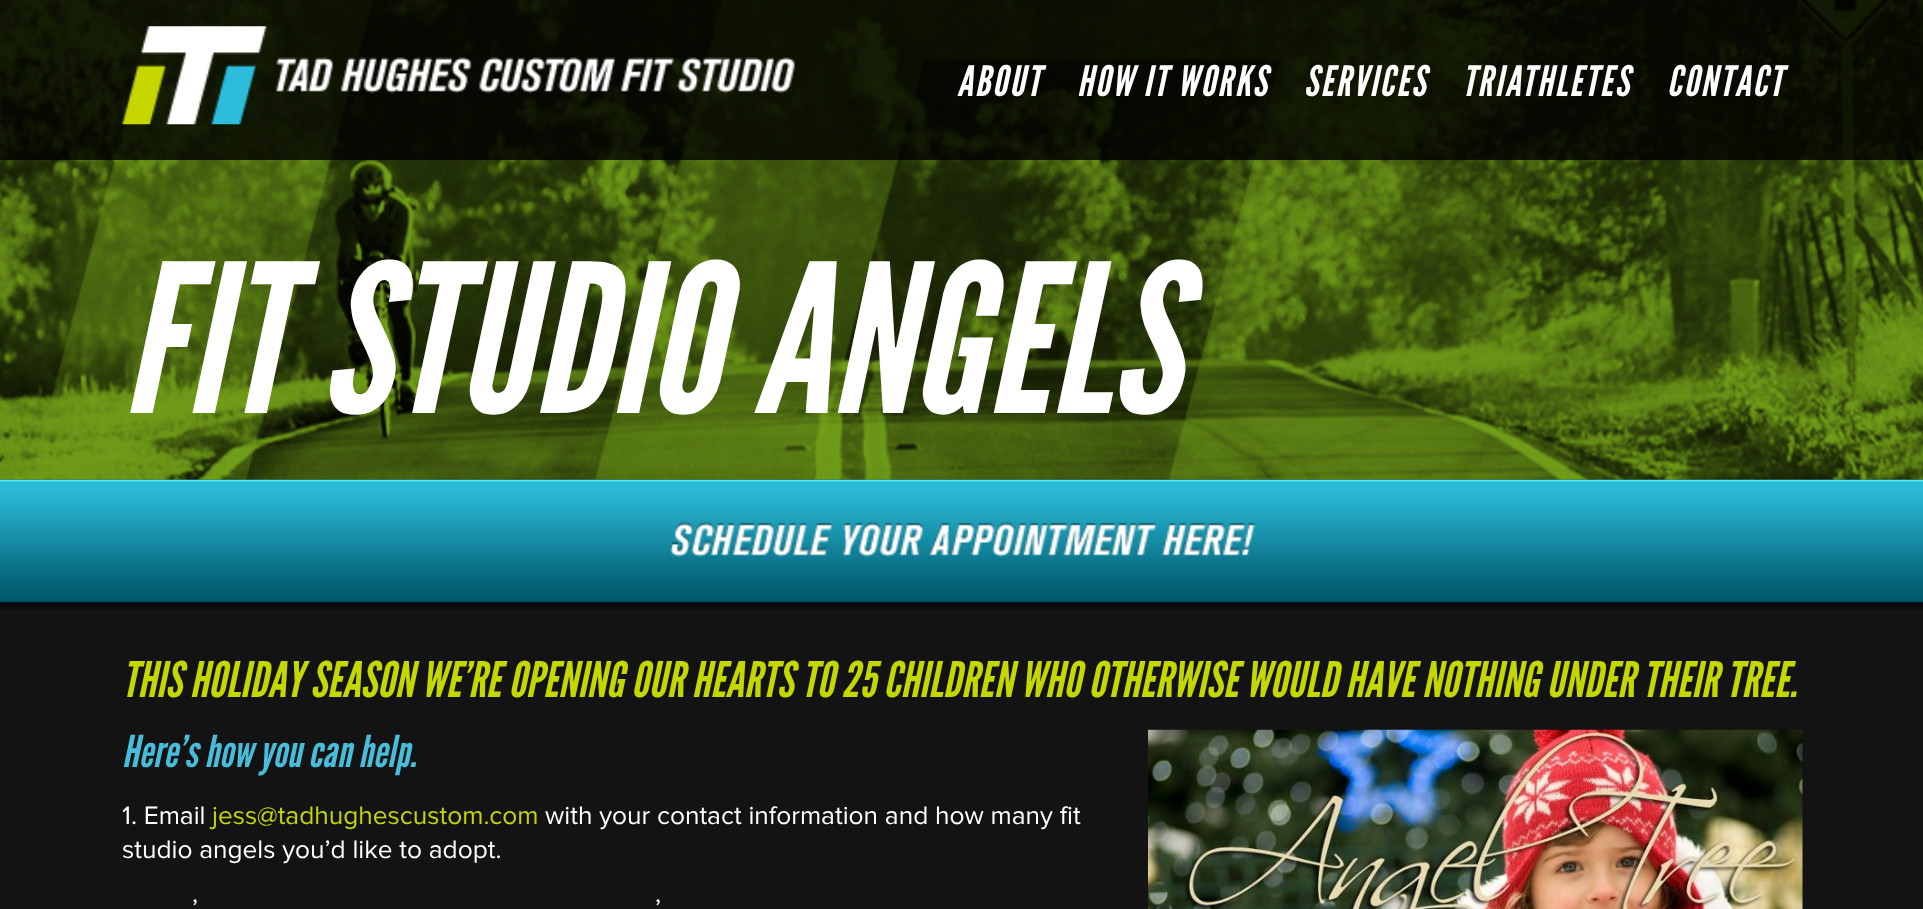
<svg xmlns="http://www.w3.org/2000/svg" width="1923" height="909">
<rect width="100%" height="100%" fill="#131313"/>
<image x="0" y="479" width="1923" height="130" href="media/3.png"/>
<image x="0" y="0" width="1923" height="480" href="media/1.png"/>
<rect width="1923" height="160" fill="#000000cc"/>
<image x="122" y="26" width="673" height="99" href="media/2.png"/>
<text x="957" y="96" style="font-family:League Gothic;font-size:42px;font-style:italic;letter-spacing:2.1px;fill:#fff">ABOUT</text>
<text x="1077" y="96" style="font-family:League Gothic;font-size:42px;font-style:italic;letter-spacing:2.1px;fill:#fff">HOW IT WORKS</text>
<text x="1304" y="96" style="font-family:League Gothic;font-size:42px;font-style:italic;letter-spacing:2.1px;fill:#fff">SERVICES</text>
<text x="1462" y="96" style="font-family:League Gothic;font-size:42px;font-style:italic;letter-spacing:2.1px;fill:#fff">TRIATHLETES</text>
<text x="1667" y="96" style="font-family:League Gothic;font-size:42px;font-style:italic;letter-spacing:2.1px;fill:#fff">CONTACT</text>
<text x="122" y="413" style="font-family:League Gothic;font-size:206.5px;font-style:italic;fill:#fff">FIT STUDIO ANGELS</text>
<image x="670" y="521" width="586" height="36" href="media/4.png"/>
<text x="122" y="697" style="font-family:League Gothic;font-size:49px;font-style:italic;fill:#c4d800">THIS HOLIDAY SEASON WE’RE OPENING OUR HEARTS TO 25 CHILDREN WHO OTHERWISE WOULD HAVE NOTHING UNDER THEIR TREE.</text>
<text x="122" y="767" style="font-family:League Gothic;font-size:43.75px;font-style:italic;fill:#48bddb">Here’s how you can help.</text>
<image x="1148" y="729" width="655" height="180" href="media/5.png"/>
<text x="122" y="824" style="font-family:Proxima Nova;font-size:26.25px;fill:#fff">1. Email</text>
<text x="212" y="824" style="font-family:Proxima Nova;font-size:26.25px;fill:#c4d800">jess@tadhughescustom.com</text>
<text x="545" y="824" style="font-family:Proxima Nova;font-size:26.25px;fill:#fff">with your contact information and how many fit</text>
<text x="122" y="858" style="font-family:Proxima Nova;font-size:26.25px;fill:#fff">studio angels you’d like to adopt.</text>
<text x="192" y="917" style="font-family:Proxima Nova;font-size:26.25px;fill:#fff">’</text>
<text x="655" y="917" style="font-family:Proxima Nova;font-size:26.25px;fill:#fff">’</text>
</svg>
